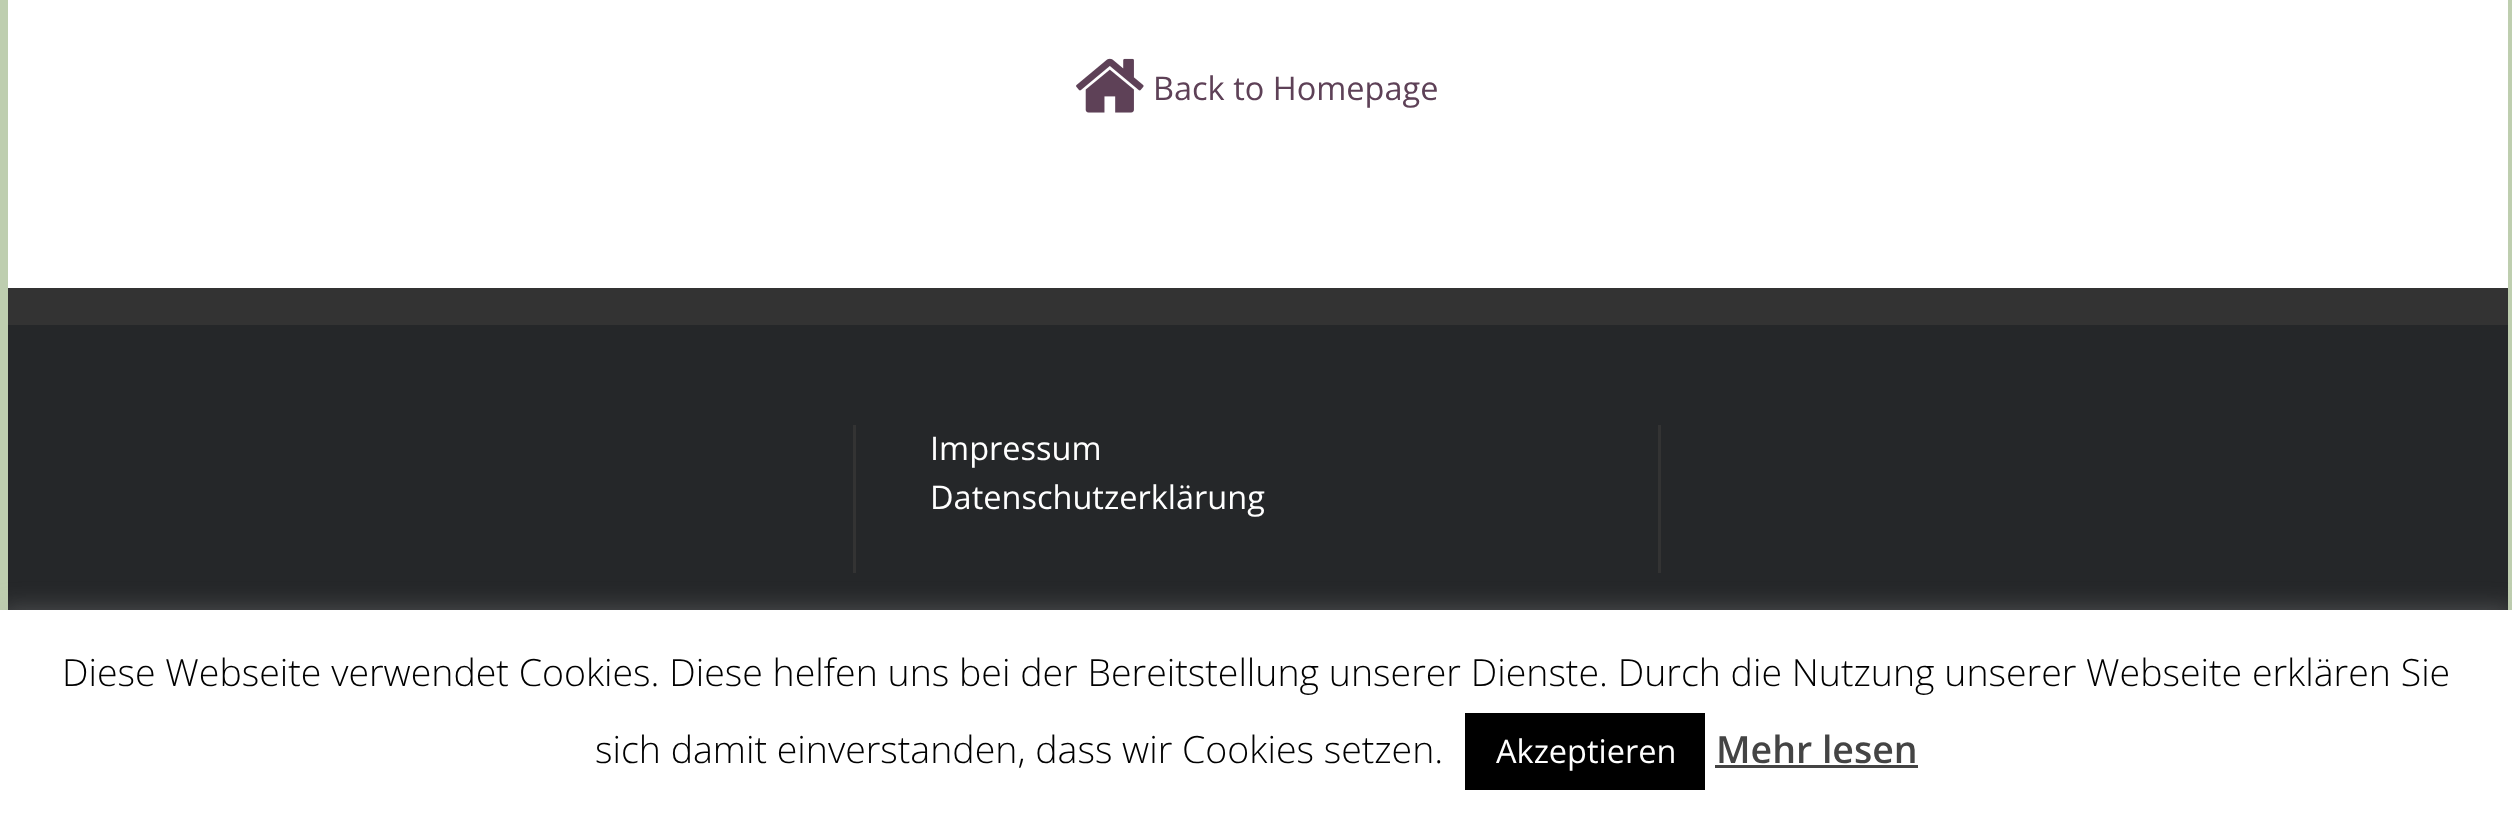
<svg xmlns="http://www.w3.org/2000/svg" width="2512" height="818">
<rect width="100%" height="100%" fill="#beceaf"/>
<rect x="8" width="2500" height="288" fill="#fff"/>
<image x="1076" y="58" width="68" height="55" href="media/1.png"/>
<text x="1153" y="100" style="font-family:Open Sans;font-size:32.5px;fill:#5e4157">Back to Homepage</text>
<rect x="8" y="325" width="2500" height="285" fill="#252729"/>
<rect x="8" y="288" width="2500" height="37" fill="#333"/>
<rect x="1658" y="425" width="3" height="148" fill="#333"/>
<rect x="853" y="425" width="3" height="148" fill="#333"/>
<text x="930" y="460" style="font-family:Open Sans;font-size:32.5px;fill:#fff">Impressum</text>
<text x="930" y="509" style="font-family:Open Sans;font-size:32.5px;fill:#fff">Datenschutzerklärung</text>
<rect y="608" width="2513" height="210" fill="#acabab4d" filter="blur(12.5px)"/>
<rect y="610" width="2512" height="208" fill="#fff"/>
<text x="62" y="686" style="font-family:Open Sans;font-size:37.5px;font-weight:300;fill:#000">Diese Webseite verwendet Cookies. Diese helfen uns bei der Bereitstellung unserer Dienste. Durch die Nutzung unserer Webseite erklären Sie</text>
<text x="595" y="763" style="font-family:Open Sans;font-size:37.5px;font-weight:300;fill:#000">sich damit einverstanden, dass wir Cookies setzen.</text>
<rect x="1465" y="713" width="240" height="77" fill="#000"/>
<text x="1496" y="763" style="font-family:Open Sans;font-size:32.5px;fill:#fff">Akzeptieren</text>
<text x="1716" y="763" style="font-family:Open Sans;font-size:37.5px;font-weight:600;fill:#444">Mehr lesen</text>
<rect x="1715" y="765" width="203" height="3" fill="#444"/>
</svg>
